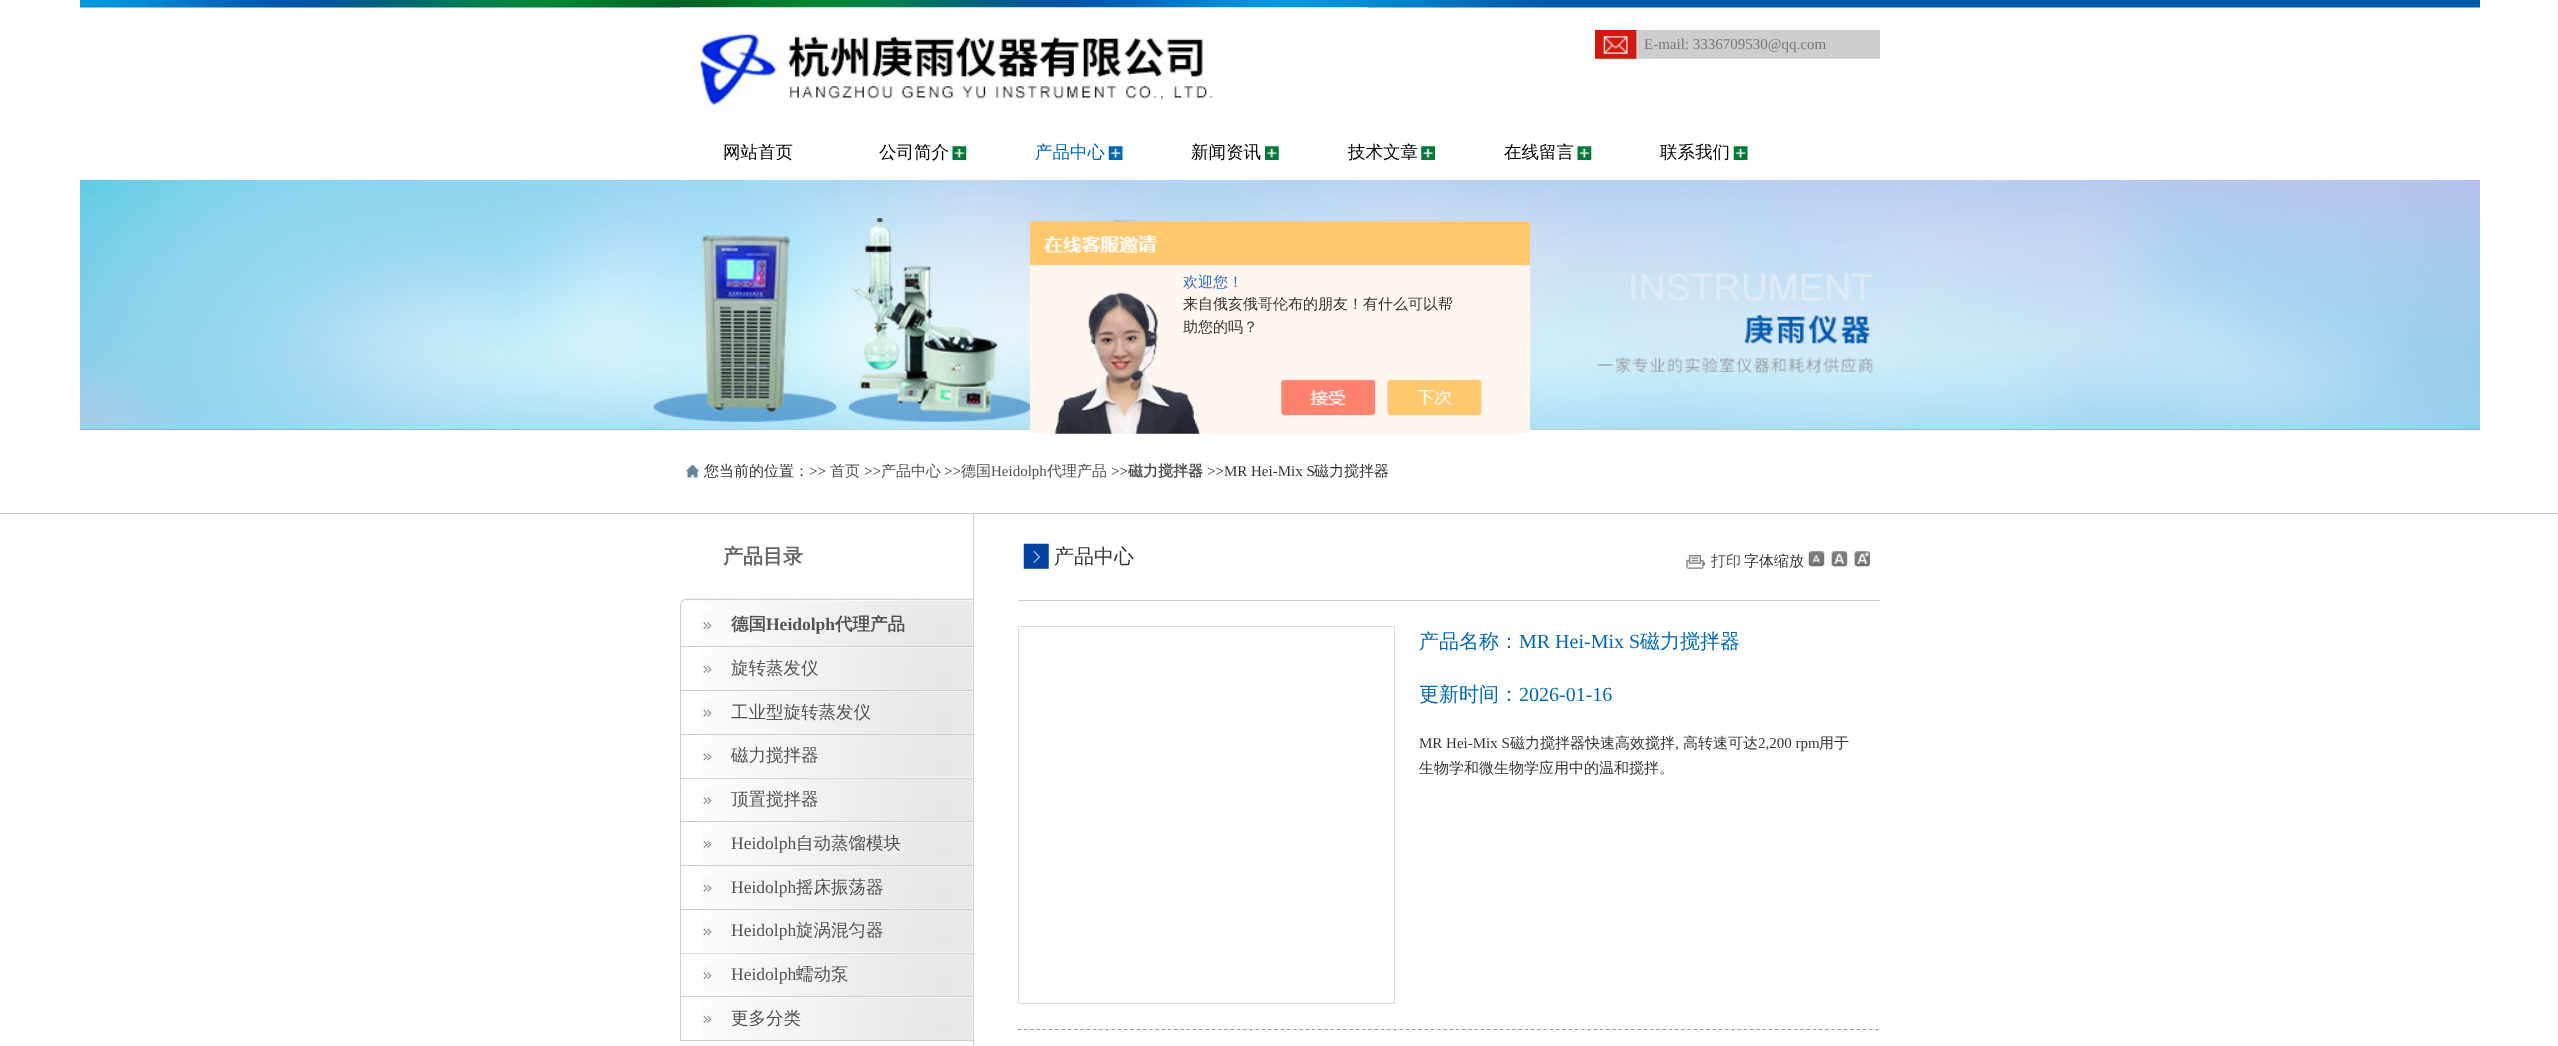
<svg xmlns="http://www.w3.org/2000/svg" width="2558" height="1046">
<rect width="100%" height="100%" fill="#fff"/>
<image x="80" y="0" width="2400" height="8" href="media/1.png"/>
<image x="680" y="7" width="688" height="101" href="media/2.png"/>
<image x="1595" y="30" width="285" height="29" href="media/3.png"/>
<text x="1644" y="49" style="font-family:Liberation Serif;font-size:15px;fill:#777">E-mail: 3336709530@qq.com</text>
<text x="723" y="158" style="font-family:WenQuanYi Zen Hei;font-size:17.5px;font-weight:500;fill:#000">网站首页</text>
<image x="952" y="146" width="15" height="14" href="media/4.png"/>
<text x="879" y="158" style="font-family:WenQuanYi Zen Hei;font-size:17.5px;font-weight:500;fill:#000">公司简介</text>
<image x="1108" y="146" width="15" height="14" href="media/5.png"/>
<text x="1035" y="158" style="font-family:WenQuanYi Zen Hei;font-size:17.5px;font-weight:500;fill:#0069b5">产品中心</text>
<image x="1265" y="146" width="14" height="14" href="media/6.png"/>
<text x="1191" y="158" style="font-family:WenQuanYi Zen Hei;font-size:17.5px;font-weight:500;fill:#000">新闻资讯</text>
<image x="1421" y="146" width="14" height="14" href="media/7.png"/>
<text x="1348" y="158" style="font-family:WenQuanYi Zen Hei;font-size:17.5px;font-weight:500;fill:#000">技术文章</text>
<image x="1577" y="146" width="15" height="14" href="media/8.png"/>
<text x="1504" y="158" style="font-family:WenQuanYi Zen Hei;font-size:17.5px;font-weight:500;fill:#000">在线留言</text>
<image x="1733" y="146" width="15" height="14" href="media/9.png"/>
<text x="1660" y="158" style="font-family:WenQuanYi Zen Hei;font-size:17.5px;font-weight:500;fill:#000">联系我们</text>
<image x="80" y="180" width="2400" height="250" href="media/10.png"/>
<image x="1029" y="221" width="501" height="213" href="media/11.png"/>
<text x="1183" y="287" style="font-family:WenQuanYi Zen Hei;font-size:15px;font-weight:500;fill:#2e6ec6">欢迎您！</text>
<text x="1183" y="309" style="font-family:WenQuanYi Zen Hei;font-size:15px;font-weight:500;fill:#333">来自俄亥俄哥伦布的朋友！有什么可以帮</text>
<text x="1183" y="332" style="font-family:WenQuanYi Zen Hei;font-size:15px;font-weight:500;fill:#333">助您的吗？</text>
<rect y="513" width="2558" height="1" fill="#cdcdcd"/>
<image x="686" y="465" width="13" height="13" href="media/12.png"/>
<text x="704" y="476" style="font-family:WenQuanYi Zen Hei;font-size:15px;font-weight:500;fill:#333">您当前的位置：</text>
<text x="809" y="476" style="font-family:Liberation Serif;font-size:15px;fill:#333">&gt;&gt;</text>
<text x="830" y="476" style="font-family:WenQuanYi Zen Hei;font-size:15px;font-weight:500;fill:#525252">首页</text>
<text x="864" y="476" style="font-family:Liberation Serif;font-size:15px;fill:#333">&gt;&gt;</text>
<text x="881" y="476" style="font-family:WenQuanYi Zen Hei;font-size:15px;font-weight:500;fill:#525252">产品中心</text>
<text x="944" y="476" style="font-family:Liberation Serif;font-size:15px;fill:#333">&gt;&gt;</text>
<text x="961" y="476" style="font-family:WenQuanYi Zen Hei;font-size:15px;font-weight:500;fill:#525252">德国</text>
<text x="991" y="476" style="font-family:Liberation Serif;font-size:15px;fill:#525252">Heidolph</text>
<text x="1047" y="476" style="font-family:WenQuanYi Zen Hei;font-size:15px;font-weight:500;fill:#525252">代理产品</text>
<text x="1111" y="476" style="font-family:Liberation Serif;font-size:15px;fill:#333">&gt;&gt;</text>
<text x="1128" y="476" style="font-family:WenQuanYi Zen Hei;font-size:15px;font-weight:bold;fill:#525252">磁力搅拌器</text>
<text x="1207" y="476" style="font-family:Liberation Serif;font-size:15px;fill:#333">&gt;&gt;MR Hei-Mix S</text>
<text x="1314" y="476" style="font-family:WenQuanYi Zen Hei;font-size:15px;font-weight:500;fill:#333">磁力搅拌器</text>
<rect x="973" y="514" width="1" height="85" fill="#cdcdcd"/>
<text x="723" y="563" style="font-family:WenQuanYi Zen Hei;font-size:20px;font-weight:bold;fill:#666">产品目录</text>
<image x="680" y="598" width="294" height="6" href="media/13.png"/>
<rect x="973" y="599" width="1" height="447" fill="#cdcdcd"/>
<rect x="680" y="604" width="1" height="437" fill="#cdcdcd"/>
<image x="701" y="604" width="272" height="42" href="media/14.png"/>
<rect x="681" y="646" width="292" height="1" fill="#cdcdcd"/>
<text x="731" y="630" style="font-family:WenQuanYi Zen Hei;font-size:17.5px;font-weight:bold;fill:#525252">德国</text>
<text x="766" y="630" style="font-family:Liberation Serif;font-size:17.5px;font-weight:bold;fill:#525252">Heidolph</text>
<text x="835" y="630" style="font-family:WenQuanYi Zen Hei;font-size:17.5px;font-weight:bold;fill:#525252">代理产品</text>
<image x="701" y="647" width="272" height="43" href="media/15.png"/>
<rect x="681" y="690" width="292" height="1" fill="#cdcdcd"/>
<text x="731" y="674" style="font-family:WenQuanYi Zen Hei;font-size:17.5px;font-weight:500;fill:#525252">旋转蒸发仪</text>
<image x="701" y="691" width="272" height="43" href="media/16.png"/>
<rect x="681" y="734" width="292" height="1" fill="#cdcdcd"/>
<text x="731" y="718" style="font-family:WenQuanYi Zen Hei;font-size:17.5px;font-weight:500;fill:#525252">工业型旋转蒸发仪</text>
<image x="701" y="735" width="272" height="43" href="media/17.png"/>
<rect x="681" y="778" width="292" height="1" fill="#cdcdcd"/>
<text x="731" y="761" style="font-family:WenQuanYi Zen Hei;font-size:17.5px;font-weight:500;fill:#525252">磁力搅拌器</text>
<image x="681" y="778" width="292" height="43" href="media/18.png"/>
<rect x="681" y="821" width="292" height="1" fill="#cdcdcd"/>
<text x="731" y="805" style="font-family:WenQuanYi Zen Hei;font-size:17.5px;font-weight:500;fill:#525252">顶置搅拌器</text>
<image x="701" y="822" width="272" height="43" href="media/15.png"/>
<rect x="681" y="865" width="292" height="1" fill="#cdcdcd"/>
<text x="731" y="849" style="font-family:Liberation Serif;font-size:17.5px;fill:#525252">Heidolph</text>
<text x="796" y="849" style="font-family:WenQuanYi Zen Hei;font-size:17.5px;font-weight:500;fill:#525252">自动蒸馏模块</text>
<image x="701" y="866" width="272" height="43" href="media/16.png"/>
<rect x="681" y="909" width="292" height="1" fill="#cdcdcd"/>
<text x="731" y="893" style="font-family:Liberation Serif;font-size:17.5px;fill:#525252">Heidolph</text>
<text x="796" y="893" style="font-family:WenQuanYi Zen Hei;font-size:17.5px;font-weight:500;fill:#525252">摇床振荡器</text>
<image x="701" y="910" width="272" height="43" href="media/17.png"/>
<rect x="681" y="953" width="292" height="1" fill="#cdcdcd"/>
<text x="731" y="936" style="font-family:Liberation Serif;font-size:17.5px;fill:#525252">Heidolph</text>
<text x="796" y="936" style="font-family:WenQuanYi Zen Hei;font-size:17.5px;font-weight:500;fill:#525252">旋涡混匀器</text>
<image x="681" y="953" width="292" height="43" href="media/19.png"/>
<rect x="681" y="996" width="292" height="1" fill="#cdcdcd"/>
<text x="731" y="980" style="font-family:Liberation Serif;font-size:17.5px;fill:#525252">Heidolph</text>
<text x="796" y="980" style="font-family:WenQuanYi Zen Hei;font-size:17.5px;font-weight:500;fill:#525252">蠕动泵</text>
<image x="701" y="997" width="272" height="43" href="media/15.png"/>
<rect x="681" y="1040" width="292" height="1" fill="#cdcdcd"/>
<text x="731" y="1024" style="font-family:WenQuanYi Zen Hei;font-size:17.5px;font-weight:500;fill:#525252">更多分类</text>
<rect x="1018" y="600" width="862" height="1" fill="#cdcdcd"/>
<image x="1023" y="543" width="26" height="26" href="media/20.png"/>
<text x="1054" y="563" style="font-family:WenQuanYi Zen Hei;font-size:20px;font-weight:500;fill:#333">产品中心</text>
<image x="1686" y="555" width="19" height="14" href="media/21.png"/>
<text x="1711" y="566" style="font-family:WenQuanYi Zen Hei;font-size:15px;font-weight:500;fill:#525252">打印</text>
<text x="1744" y="566" style="font-family:WenQuanYi Zen Hei;font-size:15px;font-weight:500;fill:#333">字体缩放</text>
<image x="1808" y="551" width="62" height="16" href="media/22.png"/>
<rect x="1018.5" y="626.5" width="376" height="377" fill="none" stroke="#ddd"/>
<text x="1419" y="648" style="font-family:WenQuanYi Zen Hei;font-size:20px;font-weight:500;fill:#0069b5">产品名称：</text>
<text x="1519" y="648" style="font-family:Liberation Serif;font-size:20px;fill:#0069b5">MR Hei-Mix S</text>
<text x="1640" y="648" style="font-family:WenQuanYi Zen Hei;font-size:20px;font-weight:500;fill:#0069b5">磁力搅拌器</text>
<text x="1419" y="701" style="font-family:WenQuanYi Zen Hei;font-size:20px;font-weight:500;fill:#0069b5">更新时间：</text>
<text x="1519" y="701" style="font-family:Liberation Serif;font-size:20px;fill:#0069b5">2026-01-16</text>
<text x="1419" y="748" style="font-family:Liberation Serif;font-size:15px;fill:#333">MR Hei-Mix S</text>
<text x="1510" y="748" style="font-family:WenQuanYi Zen Hei;font-size:15px;font-weight:500;fill:#333">磁力搅拌器快速高效搅拌</text>
<text x="1675" y="748" style="font-family:Liberation Serif;font-size:15px;fill:#333">,</text>
<text x="1683" y="748" style="font-family:WenQuanYi Zen Hei;font-size:15px;font-weight:500;fill:#333">高转速可达</text>
<text x="1758" y="748" style="font-family:Liberation Serif;font-size:15px;fill:#333">2,200 rpm</text>
<text x="1819" y="748" style="font-family:WenQuanYi Zen Hei;font-size:15px;font-weight:500;fill:#333">用于</text>
<text x="1419" y="773" style="font-family:WenQuanYi Zen Hei;font-size:15px;font-weight:500;fill:#333">生物学和微生物学应用中的温和搅拌。</text>
<path d="M1017.5 1029.5h862.5" fill="none" stroke="#999" stroke-width="1.2" stroke-dasharray="3.75 2.51"/>
</svg>
